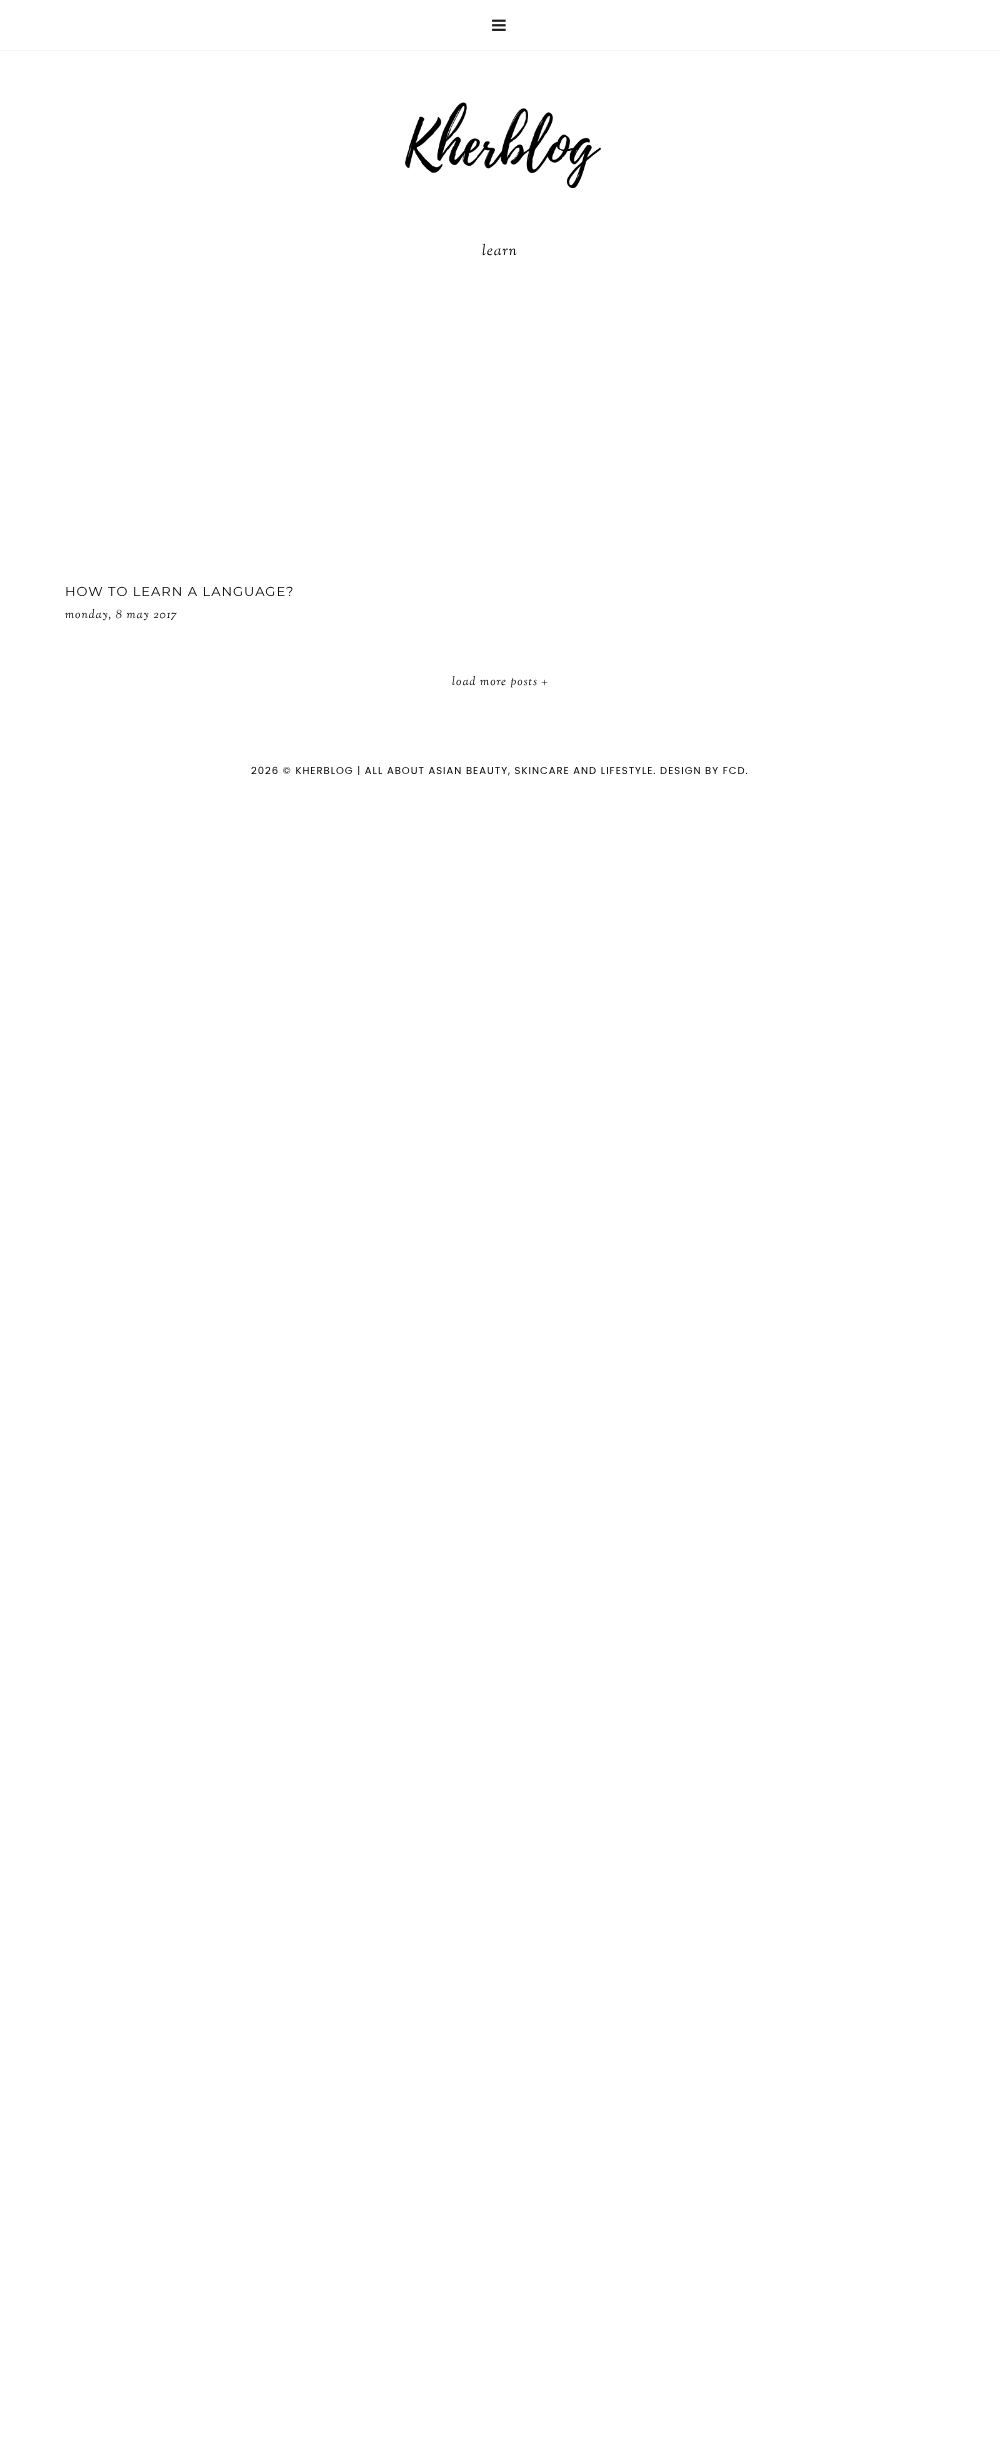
<svg xmlns="http://www.w3.org/2000/svg" width="1000" height="2451">
<rect width="100%" height="100%" fill="#fff"/>
<rect y="50" width="1000" height="1" fill="#f5f5f5"/>
<image x="492" y="19" width="14" height="12" href="media/1.png"/>
<image x="405" y="102" width="196" height="87" href="media/2.png"/>
<text x="482" y="255" style="font-family:Sorts Mill Goudy;font-size:15px;font-style:italic;letter-spacing:1px;fill:#000">learn</text>
<text x="65" y="596" style="font-family:Montserrat;font-size:13px;font-weight:100;letter-spacing:1px;fill:#000">HOW TO LEARN A LANGUAGE?</text>
<text x="65" y="618" style="font-family:Sorts Mill Goudy;font-size:12px;font-style:italic;letter-spacing:1px;fill:#000">monday, 8 may 2017</text>
<text x="452" y="685" style="font-family:Sorts Mill Goudy;font-size:12px;font-style:italic;letter-spacing:1px;fill:#000">load more posts +</text>
<text x="251" y="774" style="font-family:Poppins;font-size:10px;letter-spacing:1px;fill:#000">2026 © KHERBLOG | ALL ABOUT ASIAN BEAUTY, SKINCARE AND LIFESTYLE. DESIGN BY FCD.</text>
</svg>
